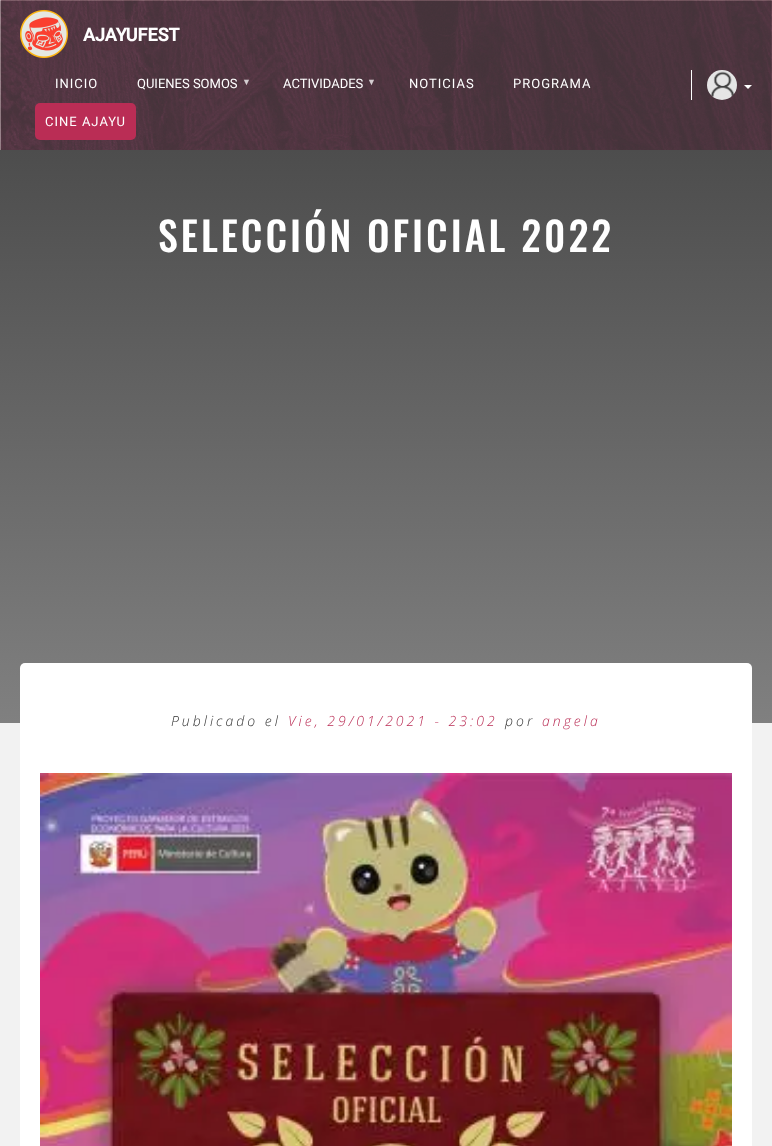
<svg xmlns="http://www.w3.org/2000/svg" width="772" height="1146">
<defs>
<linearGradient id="g1" gradientUnits="userSpaceOnUse" x1="386" y1="150" x2="386" y2="723"><stop offset="0" stop-color="#4d4d4d"/><stop offset="1" stop-color="#808080"/></linearGradient>
</defs>
<rect width="100%" height="100%" fill="#fff"/>
<image x="0" y="0" width="772" height="150" href="media/1.png"/>
<image x="20" y="10" width="48" height="48" href="media/2.png"/>
<text x="83" y="41" style="font-family:Roboto;font-size:18px;font-weight:bold;fill:#fff">AJAYUFEST</text>
<text x="55" y="88" style="font-family:Roboto;font-size:13px;letter-spacing:1px;fill:#fff">INICIO</text>
<text x="137" y="88" style="font-family:Roboto;font-size:13px;fill:#fff">QUIENES SOMOS</text>
<text x="242" y="85" style="font-family:Liberation Sans;font-size:9px;fill:#d4cdd0">▼</text>
<text x="283" y="88" style="font-family:Roboto;font-size:13px;fill:#fff">ACTIVIDADES</text>
<text x="367" y="85" style="font-family:Liberation Sans;font-size:9px;fill:#d4cdd0">▼</text>
<text x="409" y="88" style="font-family:Roboto;font-size:13px;letter-spacing:1px;fill:#fff">NOTICIAS</text>
<text x="513" y="88" style="font-family:Roboto;font-size:13px;letter-spacing:1px;fill:#fff">PROGRAMA</text>
<rect x="35" y="103" width="101" height="37" rx="5" fill="#ba2d55"/>
<text x="45" y="126" style="font-family:Roboto;font-size:13px;letter-spacing:1px;fill:#fff">CINE AJAYU</text>
<rect x="691" y="70" width="1" height="30" fill="#fff"/>
<image x="707" y="70" width="30" height="30" href="media/3.png"/>
<path d="M744 85h8l-4 4z" fill="#fff"/>
<rect y="150" width="772" height="573" fill="url(#g1)"/>
<text x="158" y="252" style="font-family:Oswald;font-size:40px;font-weight:500;letter-spacing:3px;fill:#fff">SELECCIÓN OFICIAL 2022</text>
<rect y="723" width="772" height="423" fill="#f2f2f2"/>
<rect x="20" y="663" width="732" height="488" rx="5" fill="#fff"/>
<text x="171" y="726" style="font-family:Open Sans;font-size:14px;font-weight:300;font-style:italic;letter-spacing:3px;fill:#333">Publicado el</text>
<text x="288" y="726" style="font-family:Open Sans;font-size:14px;font-weight:300;font-style:italic;letter-spacing:3px;fill:#ba2d55">Vie, 29/01/2021 - 23:02</text>
<text x="505" y="726" style="font-family:Open Sans;font-size:14px;font-weight:300;font-style:italic;letter-spacing:3px;fill:#333">por</text>
<text x="542" y="726" style="font-family:Open Sans;font-size:14px;font-weight:300;font-style:italic;letter-spacing:3px;fill:#ba2d55">angela</text>
<image x="40" y="773" width="692" height="373" href="media/4.png"/>
</svg>
